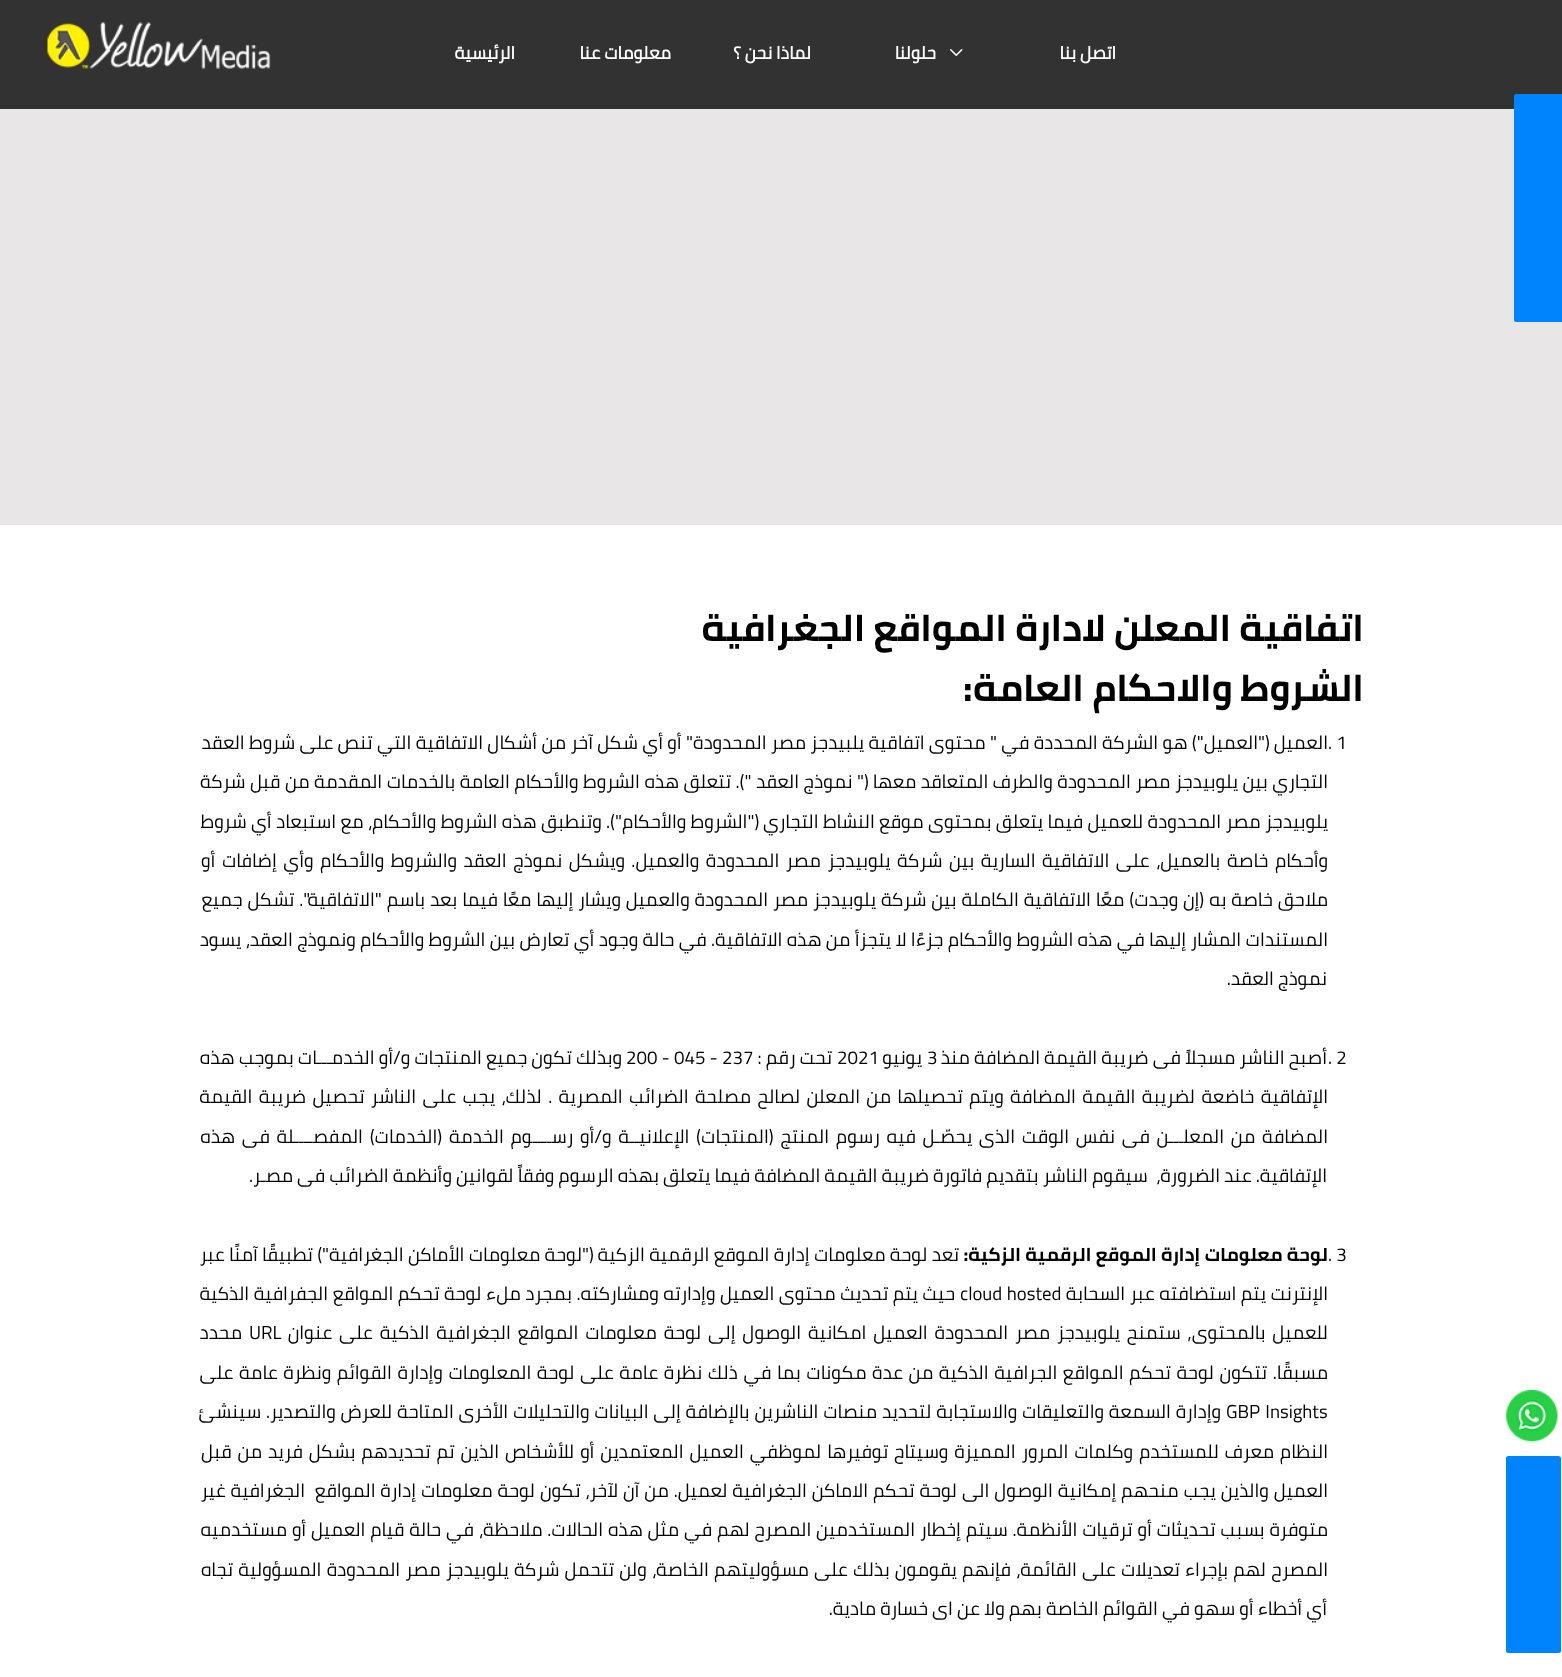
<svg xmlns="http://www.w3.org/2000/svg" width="1562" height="1677">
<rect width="100%" height="100%" fill="#fff"/>
<rect width="1562" height="109" fill="#333232"/>
<image x="47" y="22" width="224" height="47" href="media/1.png"/>
<text x="1116" y="59" style="font-family:'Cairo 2';font-size:17.5px;font-weight:bold;direction:rtl;fill:#fff">اتصل بنا</text>
<image x="950" y="49" width="13" height="7" href="media/2.png"/>
<text x="936" y="59" style="font-family:'Cairo 2';font-size:17.5px;font-weight:bold;direction:rtl;fill:#fff">حلولنا</text>
<text x="811" y="59" style="font-family:'Cairo 2';font-size:17.5px;font-weight:bold;direction:rtl;fill:#fff">لماذا نحن ؟</text>
<text x="671" y="59" style="font-family:'Cairo 2';font-size:17.5px;font-weight:bold;direction:rtl;fill:#fff">معلومات عنا</text>
<text x="515" y="59" style="font-family:'Cairo 2';font-size:17.5px;font-weight:bold;direction:rtl;fill:#fff">الرئيسية</text>
<rect y="109" width="1562" height="416" fill="#e8e6e6"/>
<path d="M1514 320v-224c0-1 1-2 2-2h45c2 0 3 1 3 2v224c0 1-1 2-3 2h-45c-1 0-2-1-2-2z" fill="#0084fe"/>
<image x="1506" y="1390" width="52" height="52" href="media/3.png"/>
<path d="M1506 1651v-193c0-1 1-2 2-2h50c2 0 3 1 3 2v193c0 1-1 2-3 2h-50c-1 0-2-1-2-2z" fill="#0084fe"/>
<text x="1364" y="641" style="font-family:Cairo;font-size:37.5px;font-weight:bold;direction:rtl;fill:#000">اتفاقية المعلن لادارة المواقع الجغرافية</text>
<text x="1364" y="701" style="font-family:Cairo;font-size:37.5px;font-weight:bold;direction:rtl;fill:#000">الشروط والاحكام العامة</text>
<text x="963" y="701" style="font-family:Cairo;font-size:37.5px;font-weight:bold;fill:#000">:</text>
<text x="1328" y="749" style="font-family:Cairo;font-size:18.75px;fill:#000">. 1</text>
<text x="1328" y="749" word-spacing="0.25" style="font-family:Cairo;font-size:18.75px;direction:rtl;fill:#000">العميل ("العميل") هو الشركة المحددة في " محتوى اتفاقية يلبيدجز مصر المحدودة" أو أي شكل آخر من أشكال الاتفاقية التي تنص على شروط العقد</text>
<text x="1328" y="788" word-spacing="0.4" style="font-family:Cairo;font-size:18.75px;direction:rtl;fill:#000">التجاري بين يلوبيدجز مصر المحدودة والطرف المتعاقد معها (" نموذج العقد "). تتعلق هذه الشروط والأحكام العامة بالخدمات المقدمة من قبل شركة</text>
<text x="1328" y="828" word-spacing="0.25" style="font-family:Cairo;font-size:18.75px;direction:rtl;fill:#000">يلوبيدجز مصر المحدودة للعميل فيما يتعلق بمحتوى موقع النشاط التجاري ("الشروط والأحكام"). وتنطبق هذه الشروط والأحكام، مع استبعاد أي شروط</text>
<text x="1328" y="867" word-spacing="2.4" style="font-family:Cairo;font-size:18.75px;direction:rtl;fill:#000">وأحكام خاصة بالعميل، على الاتفاقية السارية بين شركة يلوبيدجز مصر المحدودة والعميل. ويشكل نموذج العقد والشروط والأحكام وأي إضافات أو</text>
<text x="1328" y="906" word-spacing="0.8" style="font-family:Cairo;font-size:18.75px;direction:rtl;fill:#000">ملاحق خاصة به (إن وجدت) معًا الاتفاقية الكاملة بين شركة يلوبيدجز مصر المحدودة والعميل ويشار إليها معًا فيما بعد باسم "الاتفاقية". تشكل جميع</text>
<text x="1328" y="946" word-spacing="0.25" style="font-family:Cairo;font-size:18.75px;direction:rtl;fill:#000">المستندات المشار إليها في هذه الشروط والأحكام جزءًا لا يتجزأ من هذه الاتفاقية. في حالة وجود أي تعارض بين الشروط والأحكام ونموذج العقد، يسود</text>
<text x="1327" y="985" style="font-family:Cairo;font-size:18.75px;direction:rtl;fill:#000">نموذج العقد.</text>
<text x="1328" y="1064" style="font-family:Cairo;font-size:18.75px;fill:#000">. 2</text>
<text x="1327" y="1064" style="font-family:Cairo;font-size:18.75px;direction:rtl;fill:#000">أصبح الناشر مسجلاً فى ضريبة القيمة المضافة منذ</text>
<text x="927" y="1064" style="font-family:Cairo;font-size:18.75px;fill:#000">3</text>
<text x="922" y="1064" style="font-family:Cairo;font-size:18.75px;direction:rtl;fill:#000">يونيو</text>
<text x="837" y="1064" style="font-family:Cairo;font-size:18.75px;fill:#000">2021</text>
<text x="832" y="1064" style="font-family:Cairo;font-size:18.75px;direction:rtl;fill:#000">تحت رقم :</text>
<text x="626" y="1064" style="font-family:Cairo;font-size:18.75px;fill:#000">200 - 045 - 237</text>
<text x="622" y="1064" style="font-family:Cairo;font-size:18.75px;direction:rtl;fill:#000">وبذلك تكون جميع المنتجات و/أو الخدمـــات بموجب هذه</text>
<text x="1328" y="1103" word-spacing="2.25" style="font-family:Cairo;font-size:18.75px;direction:rtl;fill:#000">الإتفاقية خاضعة لضريبة القيمة المضافة ويتم تحصيلها من المعلن لصالح مصلحة الضرائب المصرية . لذلك، يجب على الناشر تحصيل ضريبة القيمة</text>
<text x="1328" y="1143" word-spacing="2.6" style="font-family:Cairo;font-size:18.75px;direction:rtl;fill:#000">المضافة من المعلـــن فى نفس الوقت الذى يحصّـل فيه رسوم المنتج (المنتجات) الإعلانيــة و/أو رســــوم الخدمة (الخدمات) المفصــــلة فى هذه</text>
<text x="1327" y="1182" style="font-family:Cairo;font-size:18.75px;direction:rtl;fill:#000" xml:space="preserve">الإتفاقية. عند الضرورة،  سيقوم الناشر بتقديم فاتورة ضريبة القيمة المضافة فيما يتعلق بهذه الرسوم وفقاً لقوانين وأنظمة الضرائب فى مصـر.</text>
<text x="1328" y="1261" style="font-family:Cairo;font-size:18.75px;fill:#000">. 3</text>
<text x="1328" y="1261" word-spacing="0.2" style="font-family:Cairo;font-size:18.75px;font-weight:bold;direction:rtl;fill:#000">لوحة معلومات إدارة الموقع الرقمية الزكية:</text>
<text x="959" y="1261" word-spacing="0.2" style="font-family:Cairo;font-size:18.75px;direction:rtl;fill:#000">تعد لوحة معلومات إدارة الموقع الرقمية الزكية ("لوحة معلومات الأماكن الجغرافية") تطبيقًا آمنًا عبر</text>
<text x="1328" y="1300" word-spacing="0.4" style="font-family:Cairo;font-size:18.75px;direction:rtl;fill:#000">الإنترنت يتم استضافته عبر السحابة</text>
<text x="960" y="1300" word-spacing="0.4" style="font-family:Cairo;font-size:18.75px;fill:#000">cloud hosted</text>
<text x="955" y="1300" word-spacing="0.4" style="font-family:Cairo;font-size:18.75px;direction:rtl;fill:#000">حيث يتم تحديث محتوى العميل وإدارته ومشاركته. بمجرد ملء لوحة تحكم المواقع الجفرافية الذكية</text>
<text x="1328" y="1339" word-spacing="2.75" style="font-family:Cairo;font-size:18.75px;direction:rtl;fill:#000">للعميل بالمحتوى, ستمنح يلوبيدجز مصر المحدودة العميل امكانية الوصول إلى لوحة معلومات المواقع الجغرافية الذكية على عنوان</text>
<text x="249" y="1339" style="font-family:Cairo;font-size:18.75px;fill:#000">URL</text>
<text x="242" y="1339" style="font-family:Cairo;font-size:18.75px;direction:rtl;fill:#000">محدد</text>
<text x="1328" y="1379" word-spacing="1.5" style="font-family:Cairo;font-size:18.75px;direction:rtl;fill:#000">مسبقًا. تتكون لوحة تحكم المواقع الجرافية الذكية من عدة مكونات بما في ذلك نظرة عامة على لوحة المعلومات وإدارة القوائم ونظرة عامة على</text>
<text x="1226" y="1418" word-spacing="1" style="font-family:Cairo;font-size:18.75px;fill:#000">GBP Insights</text>
<text x="1221" y="1418" word-spacing="0.7" style="font-family:Cairo;font-size:18.75px;direction:rtl;fill:#000">وإدارة السمعة والتعليقات والاستجابة لتحديد منصات الناشرين بالإضافة إلى البيانات والتحليلات الأخرى المتاحة للعرض والتصدير. سينشئ</text>
<text x="1328" y="1458" word-spacing="1.8" style="font-family:Cairo;font-size:18.75px;direction:rtl;fill:#000">النظام معرف للمستخدم وكلمات المرور المميزة وسيتاح توفيرها لموظفي العميل المعتمدين أو للأشخاص الذين تم تحديدهم بشكل فريد من قبل</text>
<text x="1328" y="1497" word-spacing="0.75" style="font-family:Cairo;font-size:18.75px;direction:rtl;fill:#000" xml:space="preserve">العميل والذين يجب منحهم إمكانية الوصول الى لوحة تحكم الاماكن الجغرافية لعميل. من آن لآخر، تكون لوحة معلومات إدارة المواقع  الجغرافية غير</text>
<text x="1328" y="1536" word-spacing="0.75" style="font-family:Cairo;font-size:18.75px;direction:rtl;fill:#000">متوفرة بسبب تحديثات أو ترقيات الأنظمة. سيتم إخطار المستخدمين المصرح لهم في مثل هذه الحالات. ملاحظة، في حالة قيام العميل أو مستخدميه</text>
<text x="1328" y="1576" word-spacing="1.1" style="font-family:Cairo;font-size:18.75px;direction:rtl;fill:#000">المصرح لهم بإجراء تعديلات على القائمة، فإنهم يقومون بذلك على مسؤوليتهم الخاصة، ولن تتحمل شركة يلوبيدجز مصر المحدودة المسؤولية تجاه</text>
<text x="1327" y="1615" style="font-family:Cairo;font-size:18.75px;direction:rtl;fill:#000">أي أخطاء أو سهو في القوائم الخاصة بهم ولا عن اى خسارة مادية.</text>
</svg>
